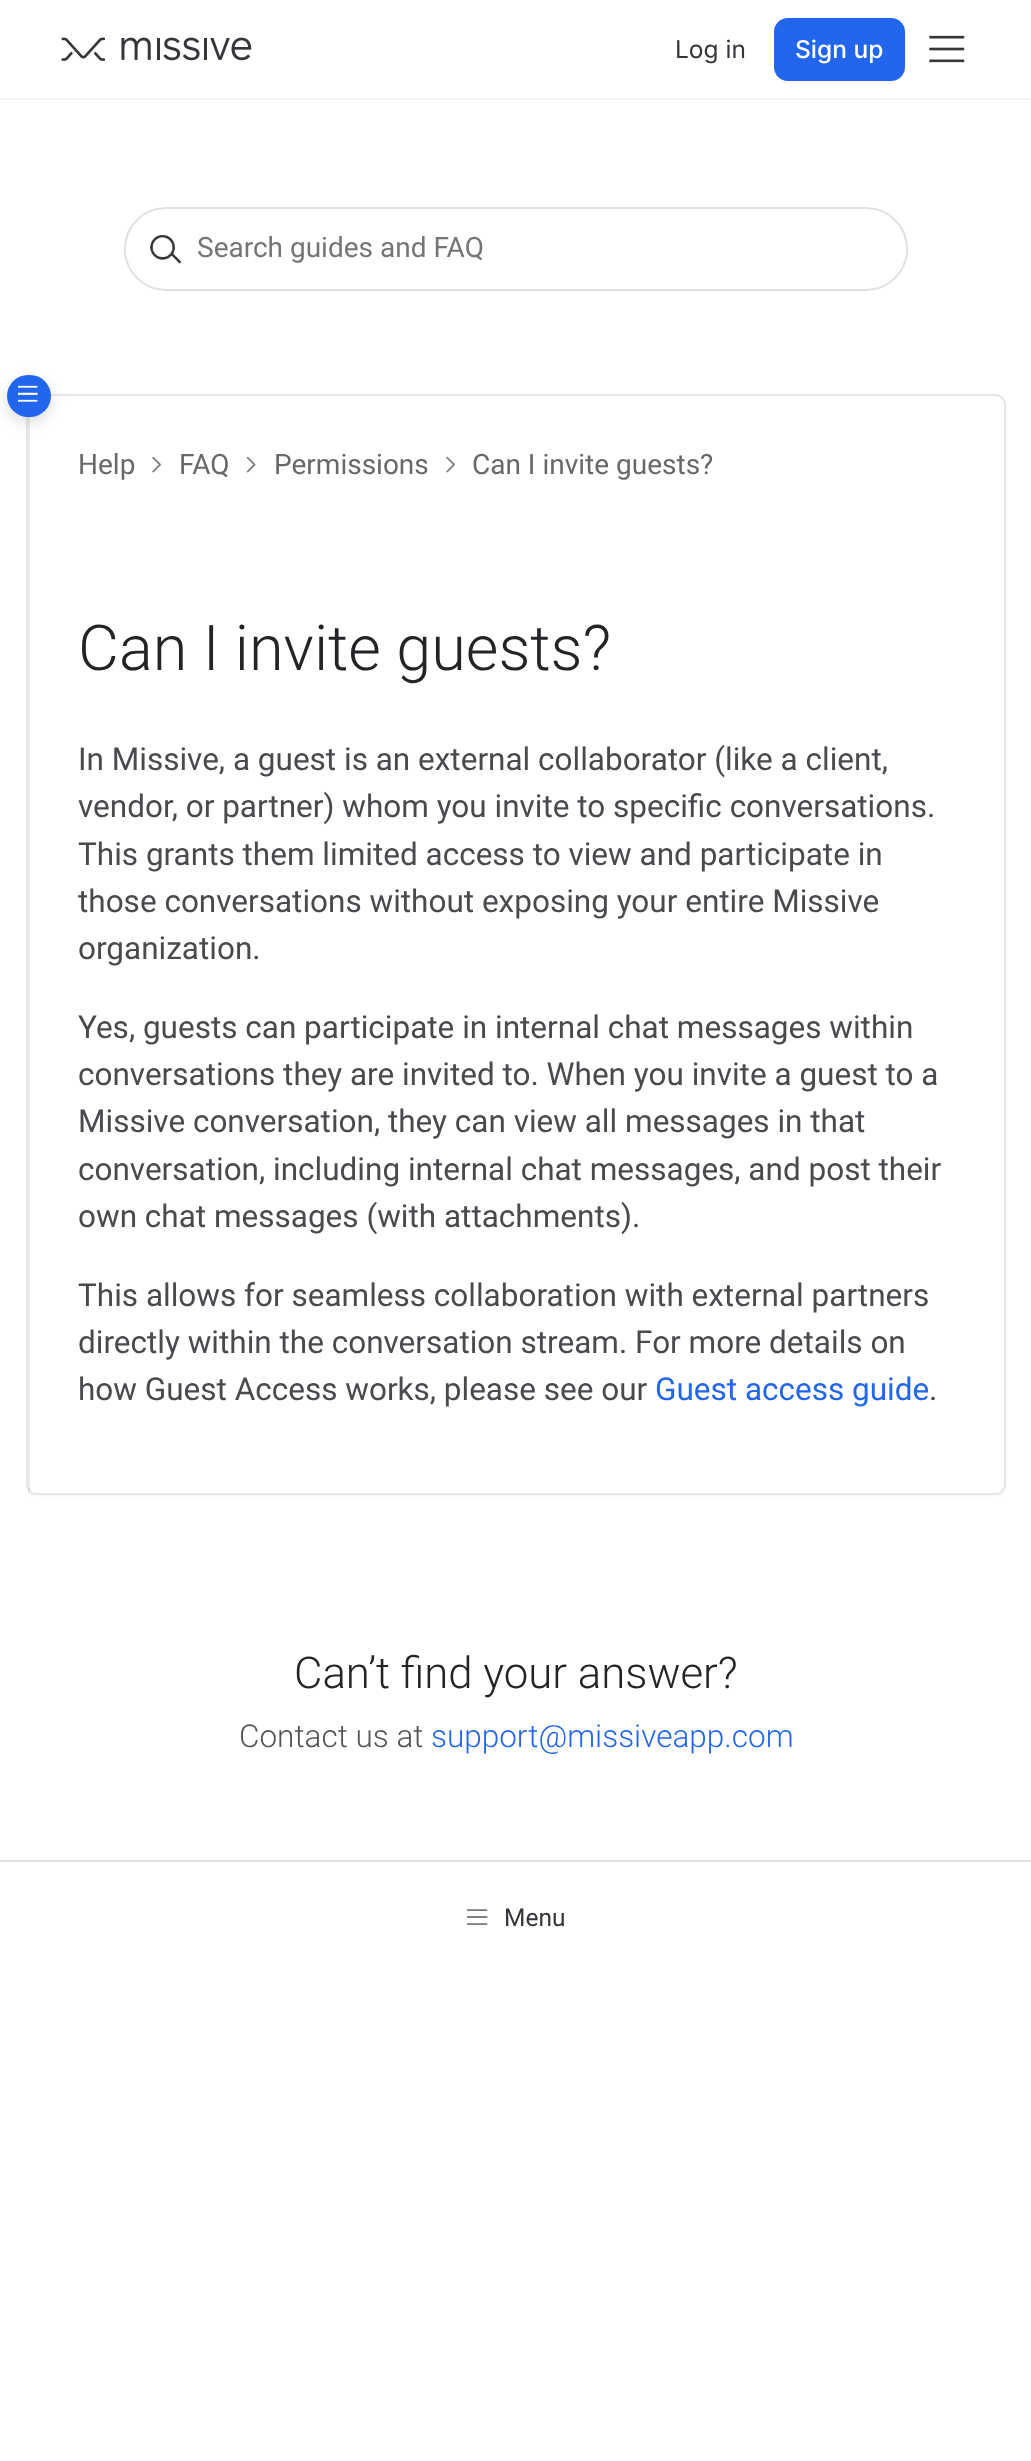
<svg xmlns="http://www.w3.org/2000/svg" width="1031" height="2461">
<rect width="100%" height="100%" fill="#fff"/>
<rect y="98" width="1031" height="2" fill="#f5f6f6"/>
<image x="61" y="37" width="191" height="24" href="media/1.png"/>
<text x="675" y="58" style="font-family:Inter;font-size:24.5px;fill:#34363a">Log in</text>
<rect x="774" y="18" width="131" height="63" rx="14" fill="#2266ed"/>
<text x="795" y="58" style="font-family:Inter;font-size:24.5px;font-weight:500;fill:#fff">Sign up</text>
<image x="929" y="35" width="36" height="28" href="media/2.png"/>
<image x="150" y="235" width="31" height="29" href="media/3.png"/>
<rect x="125" y="208" width="782" height="82" rx="41" fill="none" stroke="#e1e1e1" stroke-width="2"/>
<text x="197" y="257" style="font-family:Roboto;font-size:28px;fill:#757575">Search guides and FAQ</text>
<rect x="26" y="396" width="980" height="1100" rx="11" fill="#0000000d" filter="blur(1px)"/>
<rect x="26" y="394" width="980" height="1101" rx="11" fill="#fff"/>
<rect x="27" y="395" width="978" height="1099" rx="10" fill="none" stroke="#34363a1f" stroke-width="2"/>
<rect x="28" y="417" width="2" height="1076" fill="#34363a1a"/>
<rect x="7" y="380" width="44" height="42" rx="21" fill="#3232322b" filter="blur(7px)"/>
<rect x="7" y="375" width="44" height="42" rx="21" fill="#2266ed"/>
<image x="18" y="385" width="20" height="17" href="media/4.png"/>
<text x="78" y="474" style="font-family:Roboto;font-size:28px;fill:#67686b">Help</text>
<image x="152" y="456" width="9" height="17" href="media/5.png"/>
<text x="179" y="474" style="font-family:Roboto;font-size:28px;fill:#67686b">FAQ</text>
<image x="246" y="456" width="10" height="17" href="media/6.png"/>
<text x="274" y="474" style="font-family:Roboto;font-size:28px;fill:#67686b">Permissions</text>
<image x="446" y="456" width="9" height="17" href="media/5.png"/>
<text x="472" y="474" style="font-family:Roboto;font-size:28px;fill:#67686b">Can I invite guests?</text>
<text x="78" y="670" style="font-family:Roboto;font-size:63px;font-weight:300;fill:#222427">Can I invite guests?</text>
<text x="78" y="770" style="font-family:Roboto;font-size:31.5px;fill:#484a4e">In Missive, a guest is an external collaborator (like a client,</text>
<text x="78" y="817" style="font-family:Roboto;font-size:31.5px;fill:#484a4e">vendor, or partner) whom you invite to specific conversations.</text>
<text x="78" y="865" style="font-family:Roboto;font-size:31.5px;fill:#484a4e">This grants them limited access to view and participate in</text>
<text x="78" y="912" style="font-family:Roboto;font-size:31.5px;fill:#484a4e">those conversations without exposing your entire Missive</text>
<text x="78" y="959" style="font-family:Roboto;font-size:31.5px;fill:#484a4e">organization.</text>
<text x="78" y="1038" style="font-family:Roboto;font-size:31.5px;fill:#484a4e">Yes, guests can participate in internal chat messages within</text>
<text x="78" y="1085" style="font-family:Roboto;font-size:31.5px;fill:#484a4e">conversations they are invited to. When you invite a guest to a</text>
<text x="78" y="1132" style="font-family:Roboto;font-size:31.5px;fill:#484a4e">Missive conversation, they can view all messages in that</text>
<text x="78" y="1180" style="font-family:Roboto;font-size:31.5px;fill:#484a4e">conversation, including internal chat messages, and post their</text>
<text x="78" y="1227" style="font-family:Roboto;font-size:31.5px;fill:#484a4e">own chat messages (with attachments).</text>
<text x="78" y="1306" style="font-family:Roboto;font-size:31.5px;fill:#484a4e">This allows for seamless collaboration with external partners</text>
<text x="78" y="1353" style="font-family:Roboto;font-size:31.5px;fill:#484a4e">directly within the conversation stream. For more details on</text>
<text x="78" y="1400" style="font-family:Roboto;font-size:31.5px;fill:#484a4e">how Guest Access works, please see our</text>
<text x="655" y="1400" style="font-family:Roboto;font-size:31.5px;fill:#2266ed">Guest access guide</text>
<text x="929" y="1400" style="font-family:Roboto;font-size:31.5px;fill:#484a4e">.</text>
<text x="294" y="1688" style="font-family:Roboto;font-size:43.75px;font-weight:300;fill:#222427">Can’t find your answer?</text>
<text x="239" y="1747" style="font-family:Roboto;font-size:31.5px;font-weight:300;fill:#525458">Contact us at</text>
<text x="431" y="1747" style="font-family:Roboto;font-size:31.5px;font-weight:300;fill:#2266ed">support@missiveapp.com</text>
<rect y="1860" width="1031" height="2" fill="#e1e1e1"/>
<image x="467" y="1909" width="21" height="16" href="media/7.png"/>
<text x="504" y="1926" style="font-family:Roboto;font-size:24.5px;fill:#34363a">Menu</text>
</svg>
